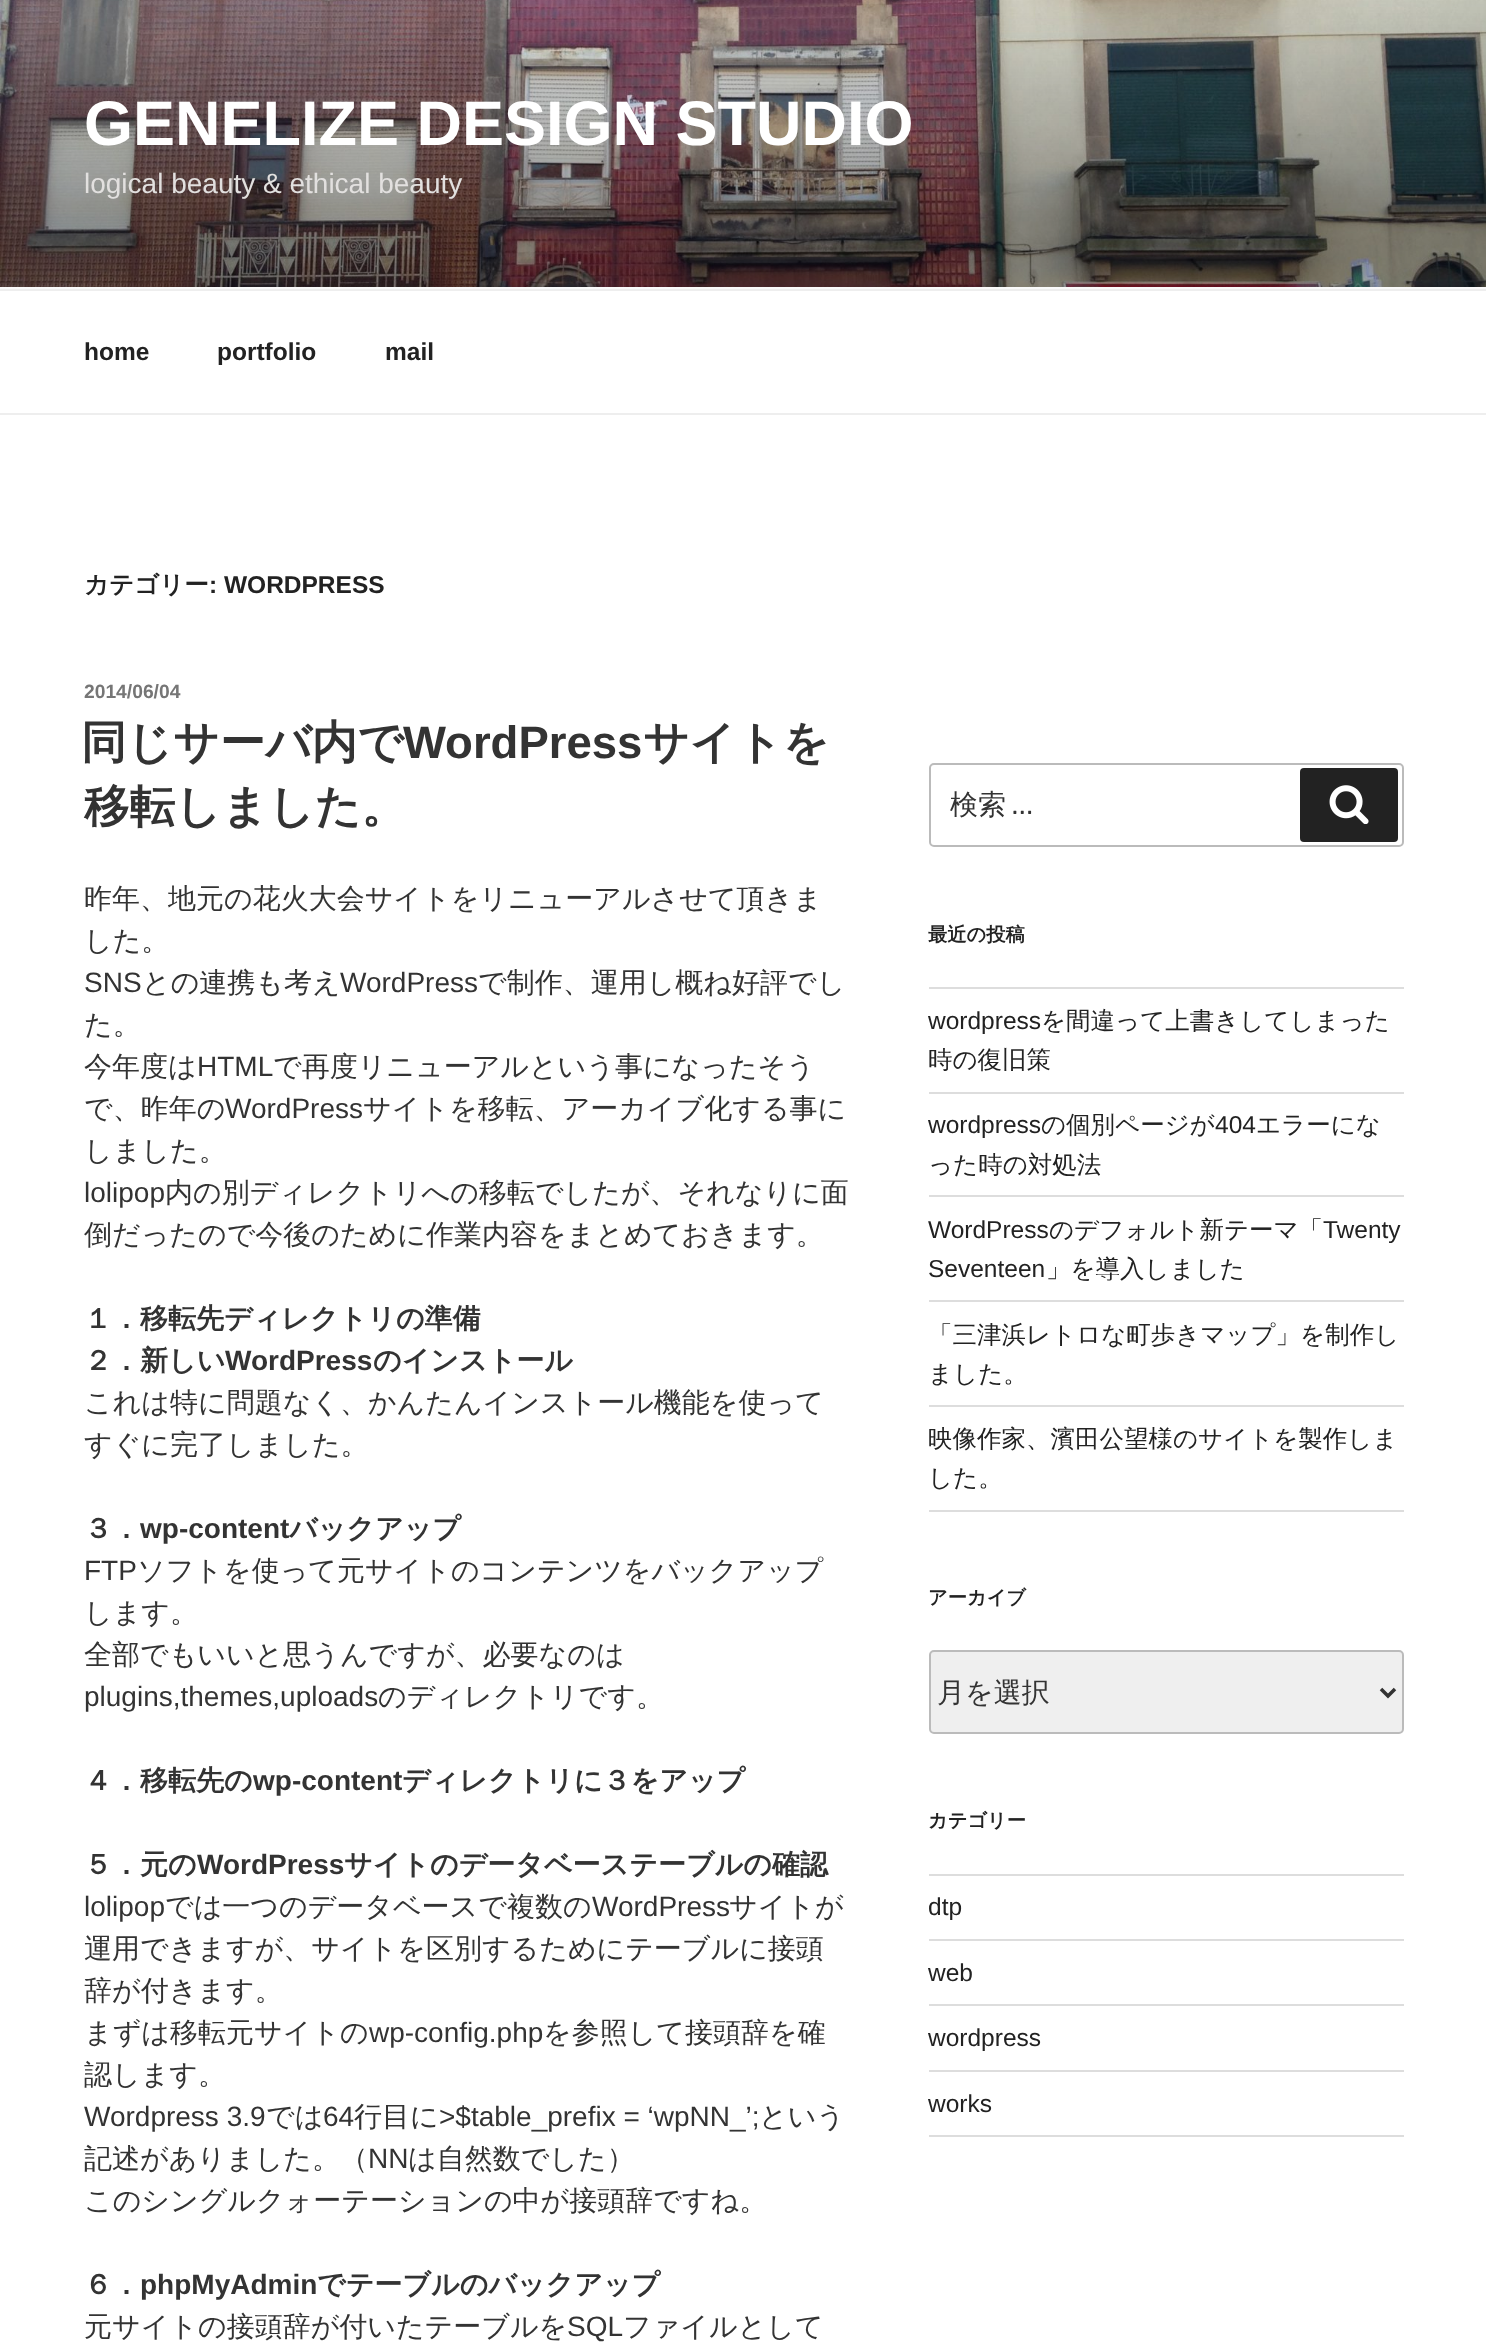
<svg xmlns="http://www.w3.org/2000/svg" width="1486" height="2349">
<rect width="100%" height="100%" fill="#fafafa"/>
<image x="0" y="0" width="1486" height="287" href="media/1.png"/>
<text x="84" y="145" style="font-family:Liberation Sans;font-size:63px;font-weight:bold;fill:#fff">GENELIZE DESIGN STUDIO</text>
<text x="84" y="193" style="font-family:Liberation Sans;font-size:28px;fill:#e2e0df">logical beauty &amp; ethical beauty</text>
<rect y="291" width="1486" height="122" fill="#fff"/>
<rect y="289" width="1486" height="2" fill="#eee"/>
<rect y="413" width="1486" height="2" fill="#eee"/>
<text x="84" y="360" style="font-family:Liberation Sans;font-size:24.5px;font-weight:bold;fill:#222">home</text>
<text x="217" y="360" style="font-family:Liberation Sans;font-size:24.5px;font-weight:bold;fill:#222">portfolio</text>
<text x="385" y="360" style="font-family:Liberation Sans;font-size:24.5px;font-weight:bold;fill:#222">mail</text>
<rect y="415" width="1486" height="1934" fill="#fff"/>
<text x="84" y="593" style="font-family:WenQuanYi Zen Hei;font-size:24.5px;font-weight:bold;fill:#222">カテゴリー</text>
<text x="209" y="593" style="font-family:Liberation Sans;font-size:24.5px;font-weight:bold;fill:#222">: WORDPRESS</text>
<text x="84" y="698" style="font-family:Liberation Sans;font-size:19.25px;font-weight:bold;fill:#767676">2014/06/04</text>
<text x="81" y="758" style="font-family:WenQuanYi Zen Hei;font-size:45.5px;font-weight:bold;fill:#333">同じサーバ内で</text>
<text x="403" y="758" style="font-family:Liberation Sans;font-size:45.5px;font-weight:bold;fill:#333">WordPress</text>
<text x="643" y="758" style="font-family:WenQuanYi Zen Hei;font-size:45.5px;font-weight:bold;fill:#333">サイトを</text>
<text x="84" y="822" style="font-family:WenQuanYi Zen Hei;font-size:45.5px;font-weight:bold;fill:#333">移転しました。</text>
<text x="84" y="908" style="font-family:WenQuanYi Zen Hei;font-size:28px;font-weight:500;fill:#333">昨年、地元の花火大会サイトをリニューアルさせて頂きま</text>
<text x="84" y="950" style="font-family:WenQuanYi Zen Hei;font-size:28px;font-weight:500;fill:#333">した。</text>
<text x="84" y="992" style="font-family:Liberation Sans;font-size:28px;fill:#333">SNS</text>
<text x="142" y="992" style="font-family:WenQuanYi Zen Hei;font-size:28px;font-weight:500;fill:#333">との連携も考え</text>
<text x="340" y="992" style="font-family:Liberation Sans;font-size:28px;fill:#333">WordPress</text>
<text x="478" y="992" style="font-family:WenQuanYi Zen Hei;font-size:28px;font-weight:500;fill:#333">で制作、運用し概ね好評でし</text>
<text x="84" y="1034" style="font-family:WenQuanYi Zen Hei;font-size:28px;font-weight:500;fill:#333">た。</text>
<text x="84" y="1076" style="font-family:WenQuanYi Zen Hei;font-size:28px;font-weight:500;fill:#333">今年度は</text>
<text x="197" y="1076" style="font-family:Liberation Sans;font-size:28px;fill:#333">HTML</text>
<text x="273" y="1076" style="font-family:WenQuanYi Zen Hei;font-size:28px;font-weight:500;fill:#333">で再度リニューアルという事になったそう</text>
<text x="84" y="1118" style="font-family:WenQuanYi Zen Hei;font-size:28px;font-weight:500;fill:#333">で、昨年の</text>
<text x="225" y="1118" style="font-family:Liberation Sans;font-size:28px;fill:#333">WordPress</text>
<text x="363" y="1118" style="font-family:WenQuanYi Zen Hei;font-size:28px;font-weight:500;fill:#333">サイトを移転、アーカイブ化する事に</text>
<text x="84" y="1160" style="font-family:WenQuanYi Zen Hei;font-size:28px;font-weight:500;fill:#333">しました。</text>
<text x="84" y="1202" style="font-family:Liberation Sans;font-size:28px;fill:#333">lolipop</text>
<text x="165" y="1202" style="font-family:WenQuanYi Zen Hei;font-size:28px;font-weight:500;fill:#333">内の別ディレクトリへの移転でしたが、それなりに面</text>
<text x="84" y="1244" style="font-family:WenQuanYi Zen Hei;font-size:28px;font-weight:500;fill:#333">倒だったので今後のために作業内容をまとめておきます。</text>
<text x="84" y="1328" style="font-family:WenQuanYi Zen Hei;font-size:28px;font-weight:bold;fill:#333">１．移転先ディレクトリの準備</text>
<text x="84" y="1370" style="font-family:WenQuanYi Zen Hei;font-size:28px;font-weight:bold;fill:#333">２．新しい</text>
<text x="225" y="1370" style="font-family:Liberation Sans;font-size:28px;font-weight:bold;fill:#333">WordPress</text>
<text x="373" y="1370" style="font-family:WenQuanYi Zen Hei;font-size:28px;font-weight:bold;fill:#333">のインストール</text>
<text x="84" y="1412" style="font-family:WenQuanYi Zen Hei;font-size:28px;font-weight:500;fill:#333">これは特に問題なく、かんたんインストール機能を使って</text>
<text x="84" y="1454" style="font-family:WenQuanYi Zen Hei;font-size:28px;font-weight:500;fill:#333">すぐに完了しました。</text>
<text x="84" y="1538" style="font-family:WenQuanYi Zen Hei;font-size:28px;font-weight:bold;fill:#333">３．</text>
<text x="140" y="1538" style="font-family:Liberation Sans;font-size:28px;font-weight:bold;fill:#333">wp-content</text>
<text x="289" y="1538" style="font-family:WenQuanYi Zen Hei;font-size:28px;font-weight:bold;fill:#333">バックアップ</text>
<text x="84" y="1580" style="font-family:Liberation Sans;font-size:28px;fill:#333">FTP</text>
<text x="137" y="1580" style="font-family:WenQuanYi Zen Hei;font-size:28px;font-weight:500;fill:#333">ソフトを使って元サイトのコンテンツをバックアップ</text>
<text x="84" y="1622" style="font-family:WenQuanYi Zen Hei;font-size:28px;font-weight:500;fill:#333">します。</text>
<text x="84" y="1664" style="font-family:WenQuanYi Zen Hei;font-size:28px;font-weight:500;fill:#333">全部でもいいと思うんですが、必要なのは</text>
<text x="84" y="1706" style="font-family:Liberation Sans;font-size:28px;fill:#333">plugins,themes,uploads</text>
<text x="378" y="1706" style="font-family:WenQuanYi Zen Hei;font-size:28px;font-weight:500;fill:#333">のディレクトリです。</text>
<text x="84" y="1790" style="font-family:WenQuanYi Zen Hei;font-size:28px;font-weight:bold;fill:#333">４．移転先の</text>
<text x="253" y="1790" style="font-family:Liberation Sans;font-size:28px;font-weight:bold;fill:#333">wp-content</text>
<text x="402" y="1790" style="font-family:WenQuanYi Zen Hei;font-size:28px;font-weight:bold;fill:#333">ディレクトリに３をアップ</text>
<text x="84" y="1874" style="font-family:WenQuanYi Zen Hei;font-size:28px;font-weight:bold;fill:#333">５．元の</text>
<text x="197" y="1874" style="font-family:Liberation Sans;font-size:28px;font-weight:bold;fill:#333">WordPress</text>
<text x="344" y="1874" style="font-family:WenQuanYi Zen Hei;font-size:28px;font-weight:bold;fill:#333">サイトのデータベーステーブルの確認</text>
<text x="84" y="1916" style="font-family:Liberation Sans;font-size:28px;fill:#333">lolipop</text>
<text x="165" y="1916" style="font-family:WenQuanYi Zen Hei;font-size:28px;font-weight:500;fill:#333">では一つのデータベースで複数の</text>
<text x="592" y="1916" style="font-family:Liberation Sans;font-size:28px;fill:#333">WordPress</text>
<text x="729" y="1916" style="font-family:WenQuanYi Zen Hei;font-size:28px;font-weight:500;fill:#333">サイトが</text>
<text x="84" y="1958" style="font-family:WenQuanYi Zen Hei;font-size:28px;font-weight:500;fill:#333">運用できますが、サイトを区別するためにテーブルに接頭</text>
<text x="84" y="2000" style="font-family:WenQuanYi Zen Hei;font-size:28px;font-weight:500;fill:#333">辞が付きます。</text>
<text x="84" y="2042" style="font-family:WenQuanYi Zen Hei;font-size:28px;font-weight:500;fill:#333">まずは移転元サイトの</text>
<text x="369" y="2042" style="font-family:Liberation Sans;font-size:28px;fill:#333">wp-config.php</text>
<text x="543" y="2042" style="font-family:WenQuanYi Zen Hei;font-size:28px;font-weight:500;fill:#333">を参照して接頭辞を確</text>
<text x="84" y="2084" style="font-family:WenQuanYi Zen Hei;font-size:28px;font-weight:500;fill:#333">認します。</text>
<text x="84" y="2126" style="font-family:Liberation Sans;font-size:28px;fill:#333">Wordpress 3.9</text>
<text x="266" y="2126" style="font-family:WenQuanYi Zen Hei;font-size:28px;font-weight:500;fill:#333">では</text>
<text x="323" y="2126" style="font-family:Liberation Sans;font-size:28px;fill:#333">64</text>
<text x="354" y="2126" style="font-family:WenQuanYi Zen Hei;font-size:28px;font-weight:500;fill:#333">行目に</text>
<text x="439" y="2126" style="font-family:Liberation Sans;font-size:28px;fill:#333">&gt;$table_prefix = ‘wpNN_’;</text>
<text x="759" y="2126" style="font-family:WenQuanYi Zen Hei;font-size:28px;font-weight:500;fill:#333">という</text>
<text x="84" y="2168" style="font-family:WenQuanYi Zen Hei;font-size:28px;font-weight:500;fill:#333">記述がありました。（</text>
<text x="368" y="2168" style="font-family:Liberation Sans;font-size:28px;fill:#333">NN</text>
<text x="408" y="2168" style="font-family:WenQuanYi Zen Hei;font-size:28px;font-weight:500;fill:#333">は自然数でした）</text>
<text x="84" y="2210" style="font-family:WenQuanYi Zen Hei;font-size:28px;font-weight:500;fill:#333">このシングルクォーテーションの中が接頭辞ですね。</text>
<text x="84" y="2294" style="font-family:WenQuanYi Zen Hei;font-size:28px;font-weight:bold;fill:#333">６．</text>
<text x="140" y="2294" style="font-family:Liberation Sans;font-size:28px;font-weight:bold;fill:#333">phpMyAdmin</text>
<text x="317" y="2294" style="font-family:WenQuanYi Zen Hei;font-size:28px;font-weight:bold;fill:#333">でテーブルのバックアップ</text>
<text x="84" y="2336" style="font-family:WenQuanYi Zen Hei;font-size:28px;font-weight:500;fill:#333">元サイトの接頭辞が付いたテーブルを</text>
<text x="567" y="2336" style="font-family:Liberation Sans;font-size:28px;fill:#333">SQL</text>
<text x="623" y="2336" style="font-family:WenQuanYi Zen Hei;font-size:28px;font-weight:500;fill:#333">ファイルとして</text>
<rect x="930" y="764" width="473" height="82" rx="4" fill="none" stroke="#bbb" stroke-width="2"/>
<text x="950" y="814" style="font-family:WenQuanYi Zen Hei;font-size:28px;font-weight:500;fill:#333">検索</text>
<text x="1012" y="814" style="font-family:Libre Franklin;font-size:28px;fill:#333">…</text>
<rect x="1300" y="768" width="98" height="74" rx="4" fill="#222"/>
<image x="1329" y="785" width="40" height="39" href="media/2.png"/>
<text x="928" y="941" style="font-family:WenQuanYi Zen Hei;font-size:19.25px;font-weight:bold;fill:#222">最近の投稿</text>
<rect x="929" y="987" width="475" height="2" fill="#ddd"/>
<rect x="929" y="1092" width="475" height="2" fill="#ddd"/>
<text x="928" y="1029" style="font-family:Liberation Sans;font-size:24.5px;fill:#222">wordpress</text>
<text x="1041" y="1029" style="font-family:WenQuanYi Zen Hei;font-size:24.5px;font-weight:500;fill:#222">を間違って上書きしてしまった</text>
<text x="928" y="1068" style="font-family:WenQuanYi Zen Hei;font-size:24.5px;font-weight:500;fill:#222">時の復旧策</text>
<rect x="929" y="1195" width="475" height="2" fill="#ddd"/>
<text x="928" y="1133" style="font-family:Liberation Sans;font-size:24.5px;fill:#222">wordpress</text>
<text x="1041" y="1133" style="font-family:WenQuanYi Zen Hei;font-size:24.5px;font-weight:500;fill:#222">の個別ページが</text>
<text x="1215" y="1133" style="font-family:Liberation Sans;font-size:24.5px;fill:#222">404</text>
<text x="1256" y="1133" style="font-family:WenQuanYi Zen Hei;font-size:24.5px;font-weight:500;fill:#222">エラーにな</text>
<text x="928" y="1173" style="font-family:WenQuanYi Zen Hei;font-size:24.5px;font-weight:500;fill:#222">った時の対処法</text>
<rect x="929" y="1300" width="475" height="2" fill="#ddd"/>
<text x="928" y="1238" style="font-family:Liberation Sans;font-size:24.5px;fill:#222">WordPress</text>
<text x="1049" y="1238" style="font-family:WenQuanYi Zen Hei;font-size:24.5px;font-weight:500;fill:#222">のデフォルト新テーマ「</text>
<text x="1323" y="1238" style="font-family:Liberation Sans;font-size:24.5px;fill:#222">Twenty</text>
<text x="928" y="1277" style="font-family:Liberation Sans;font-size:24.5px;fill:#222">Seventeen</text>
<text x="1046" y="1277" style="font-family:WenQuanYi Zen Hei;font-size:24.5px;font-weight:500;fill:#222">」を導入しました</text>
<rect x="929" y="1405" width="475" height="2" fill="#ddd"/>
<text x="928" y="1343" style="font-family:WenQuanYi Zen Hei;font-size:24.5px;font-weight:500;fill:#222">「三津浜レトロな町歩きマップ」を制作し</text>
<text x="928" y="1382" style="font-family:WenQuanYi Zen Hei;font-size:24.5px;font-weight:500;fill:#222">ました。</text>
<rect x="929" y="1510" width="475" height="2" fill="#ddd"/>
<text x="928" y="1447" style="font-family:WenQuanYi Zen Hei;font-size:24.5px;font-weight:500;fill:#222">映像作家、濱田公望様のサイトを製作しま</text>
<text x="928" y="1486" style="font-family:WenQuanYi Zen Hei;font-size:24.5px;font-weight:500;fill:#222">した。</text>
<text x="928" y="1604" style="font-family:WenQuanYi Zen Hei;font-size:19.25px;font-weight:bold;fill:#222">アーカイブ</text>
<rect x="930" y="1651" width="473" height="82" rx="4" fill="#efefef" stroke="#bbb" stroke-width="2"/>
<path d="M1381 1689l7 7l7-7" fill="none" stroke="#333" stroke-width="3.5"/>
<text x="937" y="1702" style="font-family:WenQuanYi Zen Hei;font-size:28px;font-weight:500;fill:#333">月を選択</text>
<text x="928" y="1827" style="font-family:WenQuanYi Zen Hei;font-size:19.25px;font-weight:bold;fill:#222">カテゴリー</text>
<rect x="929" y="1874" width="475" height="2" fill="#ddd"/>
<rect x="929" y="1939" width="475" height="2" fill="#ddd"/>
<text x="928" y="1915" style="font-family:Liberation Sans;font-size:24.5px;fill:#222">dtp</text>
<rect x="929" y="2004" width="475" height="2" fill="#ddd"/>
<text x="928" y="1981" style="font-family:Liberation Sans;font-size:24.5px;fill:#222">web</text>
<rect x="929" y="2070" width="475" height="2" fill="#ddd"/>
<text x="928" y="2046" style="font-family:Liberation Sans;font-size:24.5px;fill:#222">wordpress</text>
<rect x="929" y="2135" width="475" height="2" fill="#ddd"/>
<text x="928" y="2112" style="font-family:Liberation Sans;font-size:24.5px;fill:#222">works</text>
</svg>
